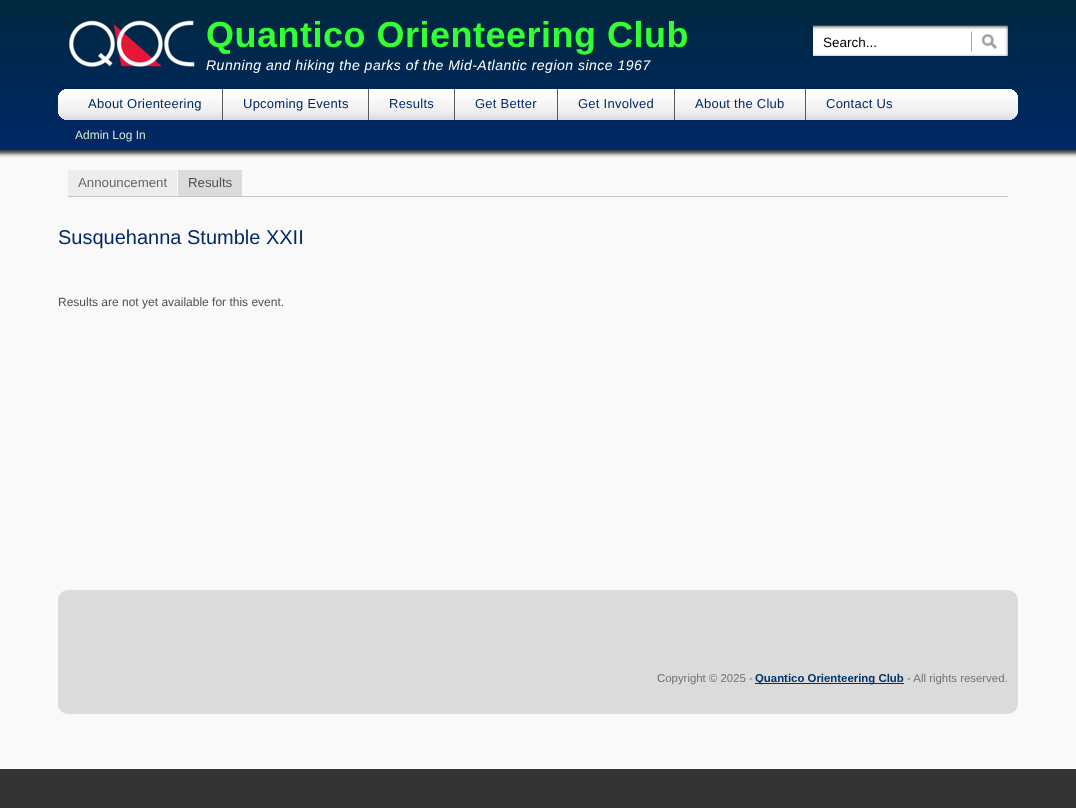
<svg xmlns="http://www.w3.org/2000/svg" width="1076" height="808">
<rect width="100%" height="100%" fill="#343434"/>
<rect y="150" width="1076" height="619" fill="#f9f9f9"/>
<image x="0" y="0" width="1076" height="150" href="media/1.png"/>
<image x="69" y="20" width="126" height="47" href="media/2.png"/>
<text x="206" y="47" style="font-family:Liberation Sans;font-size:36px;font-weight:bold;letter-spacing:0.5px;fill:#3f3">Quantico Orienteering Club</text>
<text x="206" y="70" style="font-family:Liberation Sans;font-size:14px;font-style:italic;letter-spacing:0.5px;fill:#fff">Running and hiking the parks of the Mid-Atlantic region since 1967</text>
<image x="813" y="25" width="195" height="31" href="media/3.png"/>
<text x="823" y="47" style="font-family:Liberation Sans;font-size:13.5px;fill:#000">Search...</text>
<image x="971" y="25" width="30" height="31" href="media/4.png"/>
<image x="58" y="89" width="960" height="31" href="media/5.png"/>
<rect x="1012" y="89" width="6" height="1" fill="#002868"/>
<rect x="58" y="89" width="6" height="1" fill="#002868"/>
<rect x="1014" y="90" width="4" height="1" fill="#002868"/>
<rect x="58" y="90" width="4" height="1" fill="#002868"/>
<rect x="1015" y="91" width="3" height="1" fill="#002868"/>
<rect x="58" y="91" width="3" height="1" fill="#002868"/>
<rect x="1016" y="92" width="2" height="1" fill="#002868"/>
<rect x="58" y="92" width="2" height="1" fill="#002868"/>
<rect x="1017" y="93" width="1" height="2" fill="#002868"/>
<rect x="58" y="93" width="1" height="2" fill="#002868"/>
<text x="88" y="108" style="font-family:Liberation Sans;font-size:13px;letter-spacing:0.25px;fill:#002868">About Orienteering</text>
<rect x="222" y="89" width="1" height="31" fill="#5b5b5b"/>
<text x="243" y="108" style="font-family:Liberation Sans;font-size:13px;letter-spacing:0.25px;fill:#002868">Upcoming Events</text>
<rect x="368" y="89" width="1" height="31" fill="#5b5b5b"/>
<text x="389" y="108" style="font-family:Liberation Sans;font-size:13px;letter-spacing:0.25px;fill:#002868">Results</text>
<rect x="454" y="89" width="1" height="31" fill="#5b5b5b"/>
<text x="475" y="108" style="font-family:Liberation Sans;font-size:13px;letter-spacing:0.25px;fill:#002868">Get Better</text>
<rect x="557" y="89" width="1" height="31" fill="#5b5b5b"/>
<text x="578" y="108" style="font-family:Liberation Sans;font-size:13px;letter-spacing:0.25px;fill:#002868">Get Involved</text>
<rect x="674" y="89" width="1" height="31" fill="#5b5b5b"/>
<text x="695" y="108" style="font-family:Liberation Sans;font-size:13px;letter-spacing:0.25px;fill:#002868">About the Club</text>
<rect x="805" y="89" width="1" height="31" fill="#5b5b5b"/>
<text x="826" y="108" style="font-family:Liberation Sans;font-size:13px;letter-spacing:0.25px;fill:#002868">Contact Us</text>
<rect x="1017" y="114" width="1" height="2" fill="#002868"/>
<rect x="58" y="114" width="1" height="2" fill="#002868"/>
<rect x="1016" y="116" width="2" height="1" fill="#002868"/>
<rect x="58" y="116" width="2" height="1" fill="#002868"/>
<rect x="1015" y="117" width="3" height="1" fill="#002868"/>
<rect x="58" y="117" width="3" height="1" fill="#002868"/>
<rect x="1014" y="118" width="4" height="1" fill="#002868"/>
<rect x="58" y="118" width="4" height="1" fill="#002868"/>
<rect x="1012" y="119" width="6" height="1" fill="#002868"/>
<rect x="58" y="119" width="6" height="1" fill="#002868"/>
<text x="75" y="139" style="font-family:Liberation Sans;font-size:12px;fill:#d2e6d5">Admin Log In</text>
<image x="0" y="150" width="1076" height="8" href="media/6.png"/>
<rect x="68" y="196" width="940" height="1" fill="#c3c3c3"/>
<rect x="68" y="170" width="109" height="26" fill="#ededed"/>
<text x="78" y="187" style="font-family:Liberation Sans;font-size:13.25px;fill:#666">Announcement</text>
<rect x="178" y="170" width="64" height="26" fill="#dbdbdb"/>
<text x="188" y="187" style="font-family:Liberation Sans;font-size:13.25px;fill:#505050">Results</text>
<text x="58" y="244" style="font-family:Liberation Sans;font-size:20px;fill:#002868">Susquehanna Stumble XXII</text>
<text x="58" y="306" style="font-family:Liberation Sans;font-size:12px;fill:#505050">Results are not yet available for this event.</text>
<rect x="58" y="590" width="960" height="124" rx="10" fill="#dbdbdb"/>
<text x="657" y="682" style="font-family:Liberation Sans;font-size:11.4px;fill:#727272">Copyright © 2025 -</text>
<rect x="755" y="683" width="149" height="1" fill="#036"/>
<text x="755" y="682" style="font-family:Liberation Sans;font-size:11.4px;font-weight:bold;fill:#036">Quantico Orienteering Club</text>
<text x="907" y="682" style="font-family:Liberation Sans;font-size:11.4px;fill:#727272">- All rights reserved.</text>
</svg>
